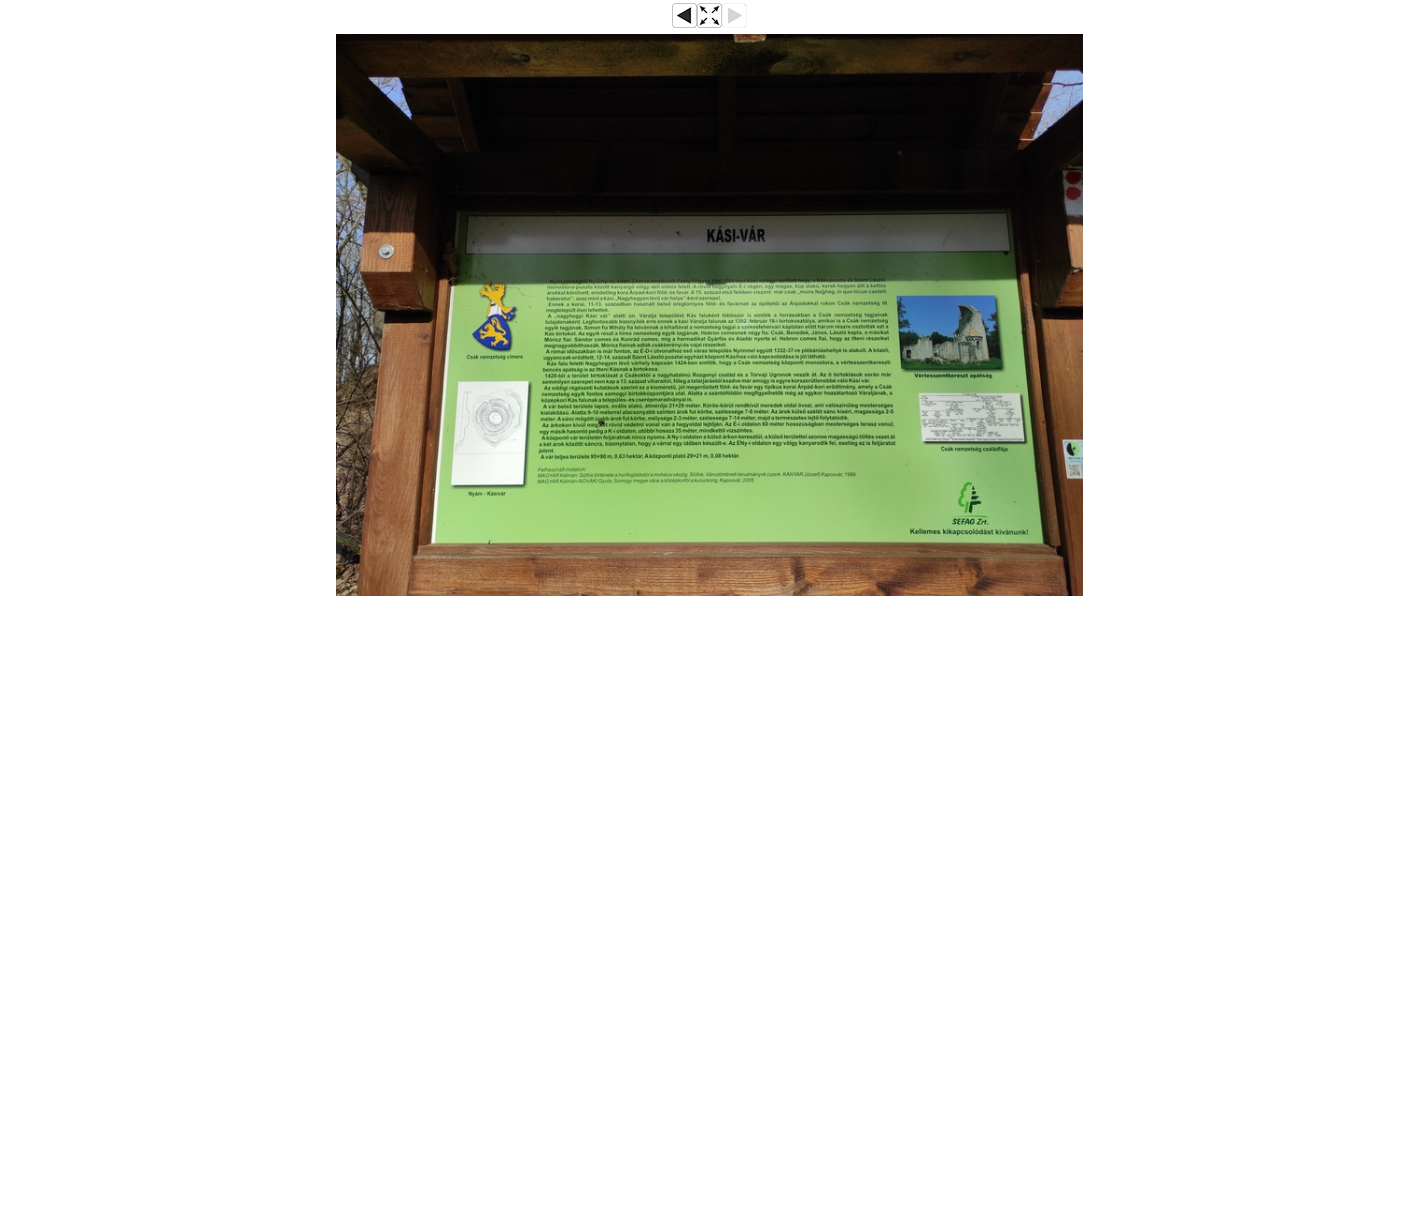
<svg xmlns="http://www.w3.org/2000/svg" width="1419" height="1211">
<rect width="100%" height="100%" fill="#fff"/>
<image x="672" y="3" width="25" height="25" href="media/1.png"/>
<image x="697" y="3" width="25" height="25" href="media/2.png"/>
<image x="722" y="3" width="25" height="25" href="media/3.png"/>
<image x="336" y="34" width="747" height="562" href="media/4.png"/>
</svg>
